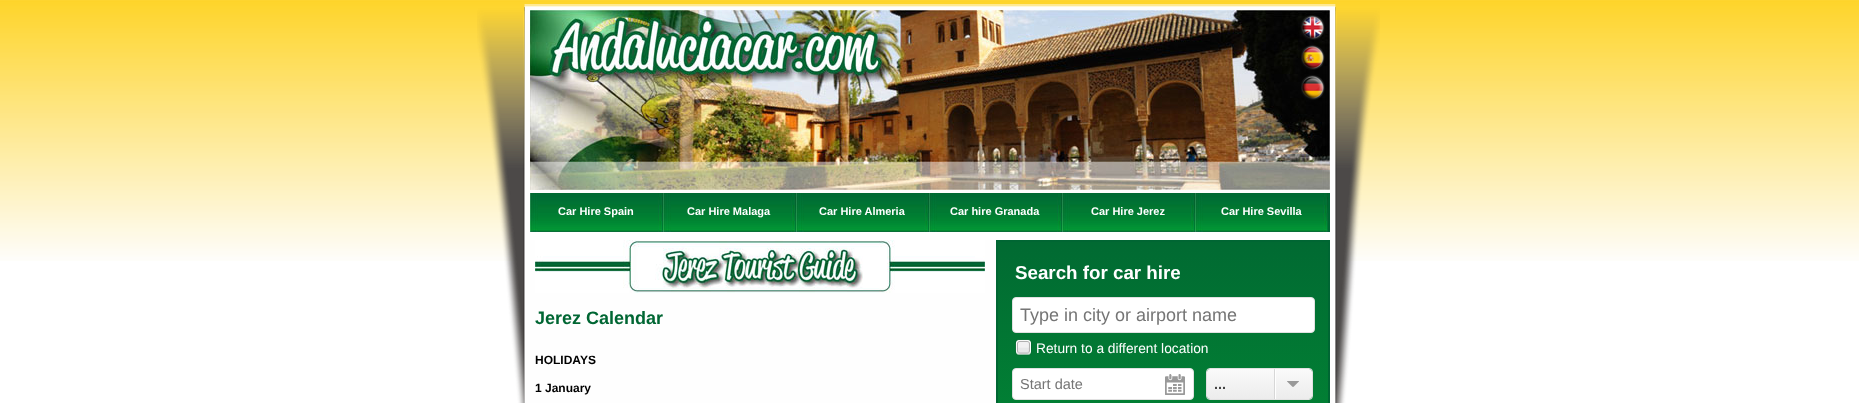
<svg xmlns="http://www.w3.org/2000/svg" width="1859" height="403">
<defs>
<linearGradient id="g1" gradientUnits="userSpaceOnUse" x1="1163" y1="242" x2="1163" y2="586"><stop offset="0" stop-color="#016a32"/><stop offset="1" stop-color="#029636"/></linearGradient>
<linearGradient id="g2" gradientUnits="userSpaceOnUse" x1="1207" y1="399" x2="1207" y2="369"><stop offset="0" stop-color="#ececec"/><stop offset="1" stop-color="#fafafa"/></linearGradient>
</defs>
<rect width="100%" height="100%" fill="#fff"/>
<image x="0" y="0" width="1859" height="261" href="media/1.png"/>
<image x="477" y="4" width="903" height="399" href="media/2.png"/>
<image x="530" y="10" width="800" height="180" href="media/3.png"/>
<image x="1300" y="15" width="25" height="25" href="media/4.png"/>
<image x="1301" y="45" width="24" height="25" href="media/5.png"/>
<image x="1301" y="75" width="24" height="25" href="media/6.png"/>
<rect x="1328" y="193" width="2" height="39" fill="#063"/>
<image x="530" y="193" width="133" height="39" href="media/7.png"/>
<text x="558" y="215" style="font-family:Liberation Sans;font-size:11px;font-weight:bold;fill:#fff">Car Hire Spain</text>
<image x="663" y="193" width="133" height="39" href="media/7.png"/>
<text x="687" y="215" style="font-family:Liberation Sans;font-size:11px;font-weight:bold;fill:#fff">Car Hire Malaga</text>
<image x="796" y="193" width="133" height="39" href="media/7.png"/>
<text x="819" y="215" style="font-family:Liberation Sans;font-size:11px;font-weight:bold;fill:#fff">Car Hire Almeria</text>
<image x="929" y="193" width="133" height="39" href="media/7.png"/>
<text x="950" y="215" style="font-family:Liberation Sans;font-size:11px;font-weight:bold;fill:#fff">Car hire Granada</text>
<image x="1062" y="193" width="133" height="39" href="media/7.png"/>
<text x="1091" y="215" style="font-family:Liberation Sans;font-size:11px;font-weight:bold;fill:#fff">Car Hire Jerez</text>
<image x="1195" y="193" width="133" height="39" href="media/7.png"/>
<text x="1221" y="215" style="font-family:Liberation Sans;font-size:11px;font-weight:bold;fill:#fff">Car Hire Sevilla</text>
<image x="535" y="240" width="450" height="53" href="media/8.png"/>
<rect x="998" y="242" width="330" height="161" fill="url(#g1)"/>
<rect x="997" y="241" width="332" height="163" fill="none" stroke="#063" stroke-width="2"/>
<text x="1015" y="279" style="font-family:Liberation Sans;font-size:18.75px;font-weight:bold;fill:#fff">Search for car hire</text>
<rect x="1012.5" y="297.5" width="302" height="35" rx="3.5" fill="#fff" stroke="#e1e1e1"/>
<text x="1020" y="321" style="font-family:Liberation Sans;font-size:18px;fill:#757575">Type in city or airport name</text>
<image x="1015" y="339" width="17" height="17" href="media/9.png"/>
<text x="1036" y="353" style="font-family:Liberation Sans;font-size:13.75px;fill:#fff">Return to a different location</text>
<rect x="1012.5" y="368.5" width="181" height="31" rx="3.5" fill="#fff" stroke="#e1e1e1"/>
<text x="1020" y="389" style="font-family:Liberation Sans;font-size:14.5px;fill:#757575">Start date</text>
<image x="1165" y="374" width="20" height="21" href="media/10.png"/>
<rect x="1207" y="369" width="105" height="30" rx="3" fill="url(#g2)"/>
<rect x="1206.5" y="368.5" width="106" height="31" rx="3.5" fill="none" stroke="#e1e1e1"/>
<image x="1274" y="369" width="2" height="30" href="media/11.png"/>
<image x="1287" y="381" width="12" height="6" href="media/12.png"/>
<text x="1214" y="389" style="font-family:Liberation Sans;font-size:14.5px;font-weight:bold;fill:#444">...</text>
<text x="535" y="324" style="font-family:Liberation Sans;font-size:18px;font-weight:bold;fill:#063">Jerez Calendar</text>
<text x="535" y="364" style="font-family:Liberation Sans;font-size:12px;font-weight:bold;fill:#000">HOLIDAYS</text>
<text x="535" y="392" style="font-family:Liberation Sans;font-size:12px;font-weight:bold;fill:#000">1 January</text>
</svg>
